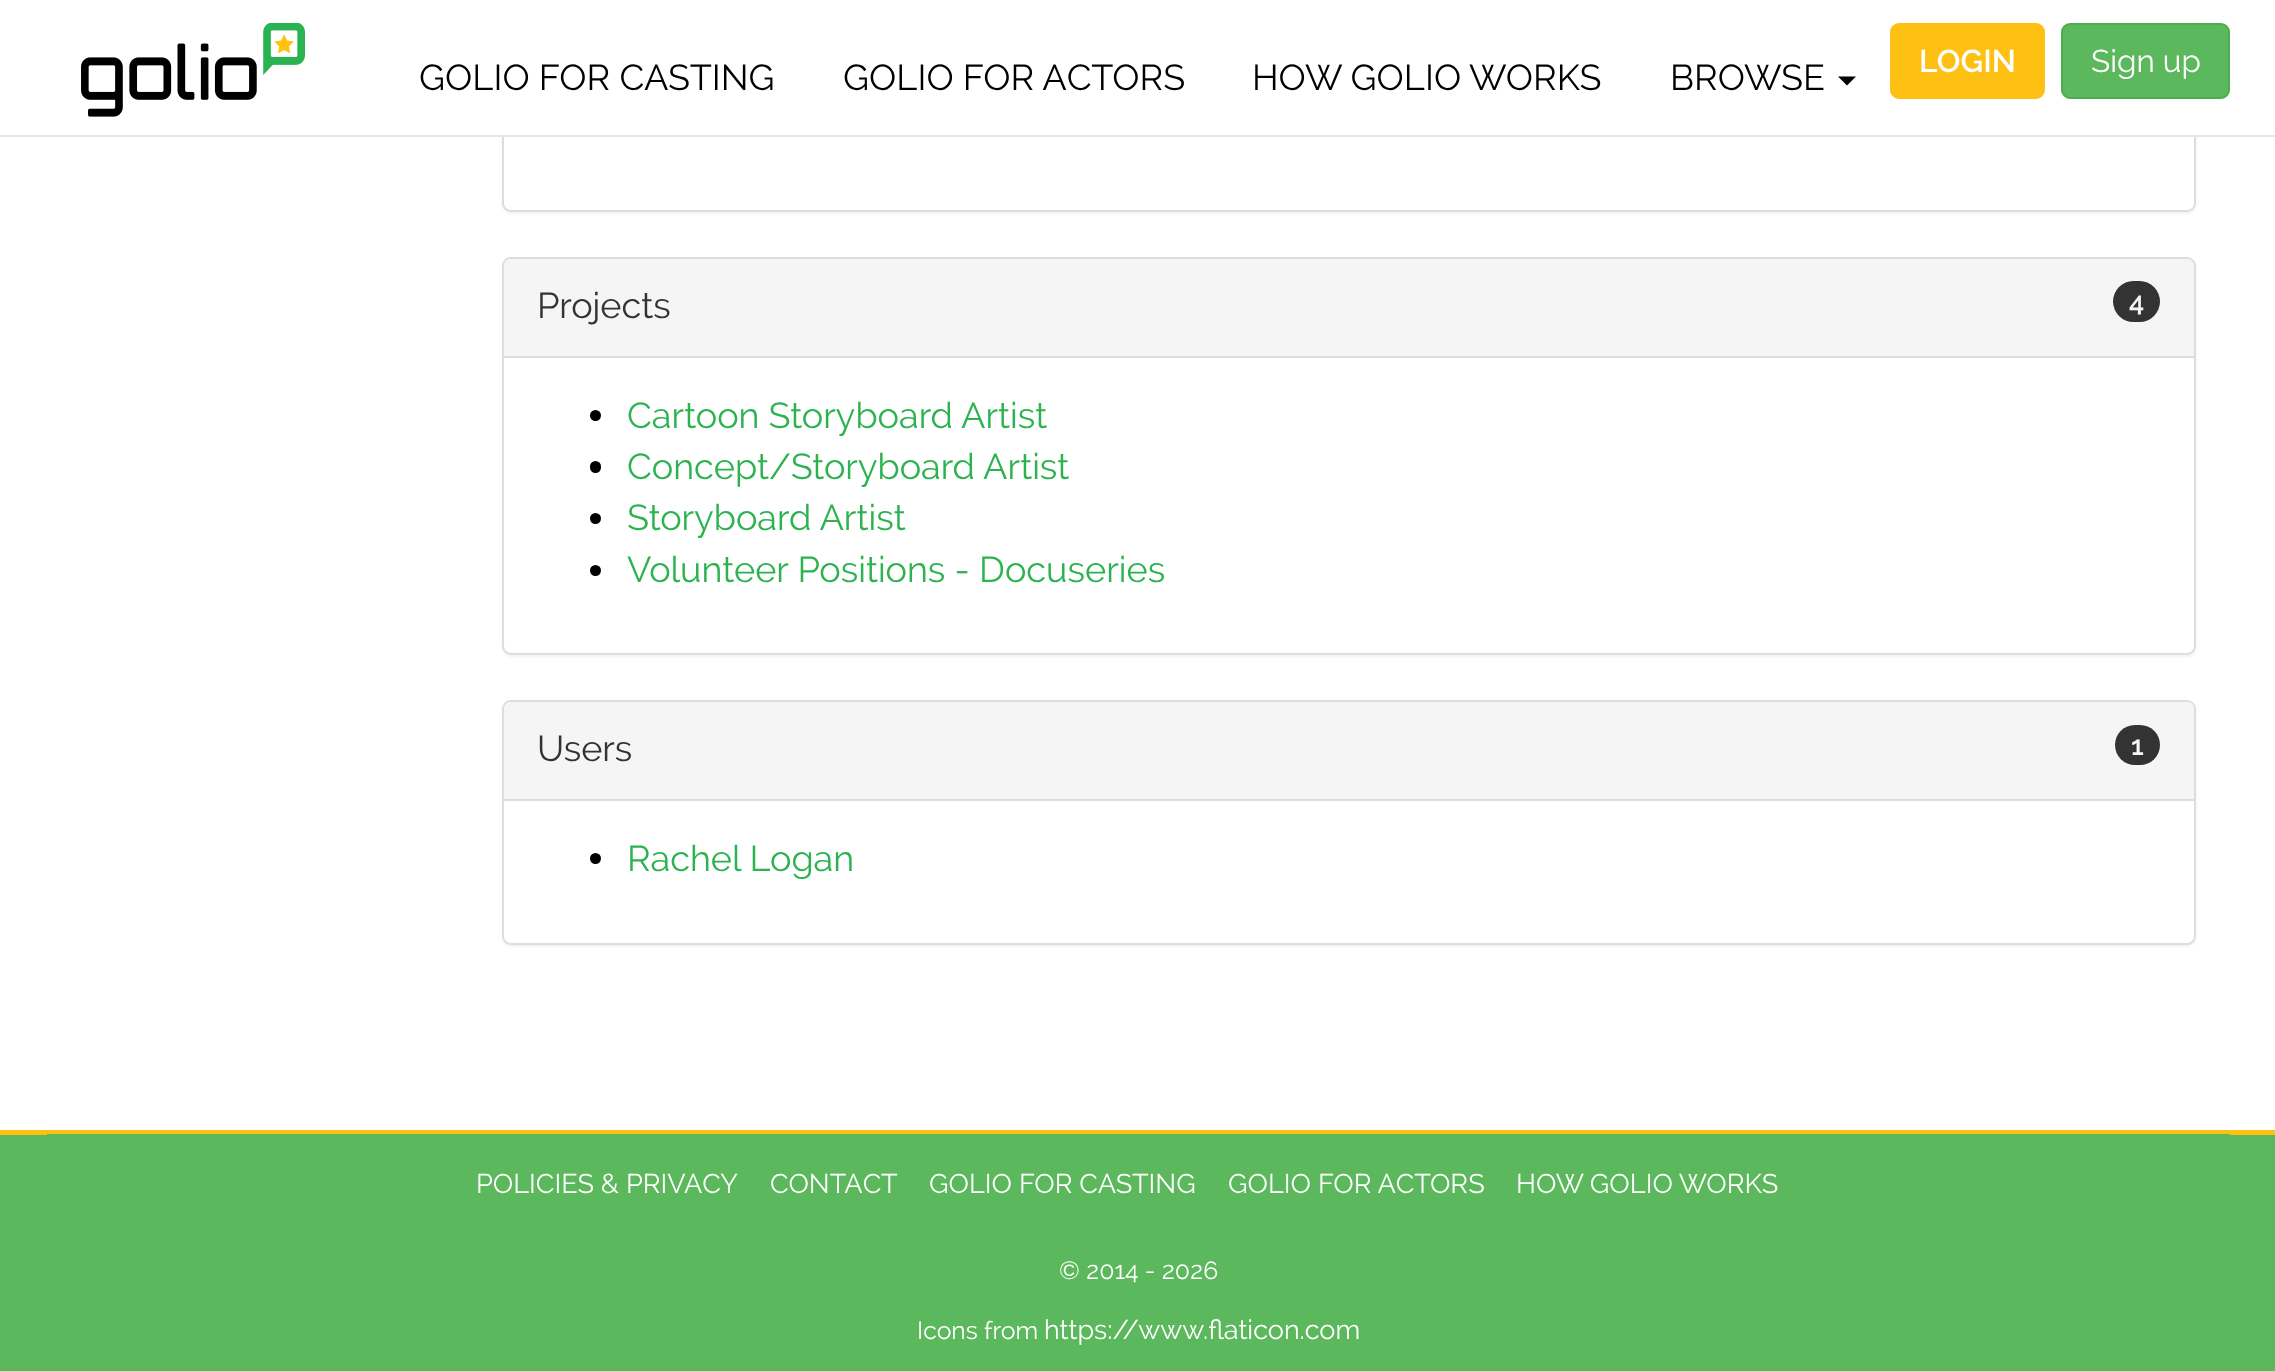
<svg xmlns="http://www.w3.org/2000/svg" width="2275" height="1371">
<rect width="100%" height="100%" fill="#fff"/>
<rect x="502" y="-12" width="1694" height="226" rx="9" fill="#0000000d" filter="blur(1px)"/>
<rect x="503" y="-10" width="1692" height="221" rx="8" fill="#fff" stroke="#ddd" stroke-width="2"/>
<rect x="501" width="1696" height="135" fill="#fff"/>
<rect y="135" width="2275" height="2" fill="#e7e7e7"/>
<image x="81" y="23" width="224" height="94" href="media/1.png"/>
<text x="419" y="90" style="font-family:Raleway;font-size:36px;fill:#000">GOLIO FOR CASTING</text>
<text x="843" y="90" style="font-family:Raleway;font-size:36px;fill:#000">GOLIO FOR ACTORS</text>
<text x="1252" y="90" style="font-family:Raleway;font-size:36px;fill:#000">HOW GOLIO WORKS</text>
<text x="1670" y="90" style="font-family:Raleway;font-size:36px;fill:#000">BROWSE</text>
<path d="M1838 76.5h18l-9 9z" fill="#000"/>
<rect x="1891" y="24" width="153" height="74" rx="8" fill="#fdc013" stroke="#fdc013" stroke-width="2"/>
<text x="1919" y="72" style="font-family:Raleway;font-size:31.5px;font-weight:600;fill:#fff">LOGIN</text>
<rect x="2062" y="24" width="167" height="74" rx="8" fill="#5cb85c" stroke="#4cae4c" stroke-width="2"/>
<text x="2091" y="72" style="font-family:Raleway;font-size:31.5px;fill:#fff">Sign up</text>
<rect x="502" y="259" width="1694" height="398" rx="9" fill="#0000000d" filter="blur(1px)"/>
<rect x="503" y="258" width="1692" height="396" rx="8" fill="#fff" stroke="#ddd" stroke-width="2"/>
<path d="M511 259h1676c4 0 7 3 7 7v92h-1690v-92c0-4 3-7 7-7z" fill="#f5f5f5"/>
<rect x="504" y="356" width="1690" height="2" fill="#ddd"/>
<text x="537" y="318" style="font-family:Raleway;font-size:36px;fill:#333">Projects</text>
<rect x="2113" y="281" width="47" height="41" rx="20.5" fill="#333"/>
<text x="2129" y="311" style="font-family:Raleway;font-size:27px;font-weight:600;fill:#f5f5f5">4</text>
<circle cx="595.5" cy="415.5" r="5.5" fill="#000"/>
<text x="627" y="428" style="font-family:Raleway;font-size:36px;fill:#2cb350">Cartoon Storyboard Artist</text>
<rect x="590" y="461" width="11" height="12" rx="5.5" fill="#000"/>
<text x="627" y="479" style="font-family:Raleway;font-size:36px;fill:#2cb350">Concept/Storyboard Artist</text>
<circle cx="595.5" cy="518.5" r="5.5" fill="#000"/>
<text x="627" y="530" style="font-family:Raleway;font-size:36px;fill:#2cb350">Storyboard Artist</text>
<circle cx="595.5" cy="570.5" r="5.5" fill="#000"/>
<text x="627" y="582" style="font-family:Raleway;font-size:36px;fill:#2cb350">Volunteer Positions - Docuseries</text>
<rect x="502" y="702" width="1694" height="245" rx="9" fill="#0000000d" filter="blur(1px)"/>
<rect x="503" y="701" width="1692" height="243" rx="8" fill="#fff" stroke="#ddd" stroke-width="2"/>
<path d="M511 702h1676c4 0 7 3 7 7v92h-1690v-92c0-4 3-7 7-7z" fill="#f5f5f5"/>
<rect x="504" y="799" width="1690" height="2" fill="#ddd"/>
<text x="537" y="761" style="font-family:Raleway;font-size:36px;fill:#333">Users</text>
<rect x="2115" y="725" width="45" height="40" rx="20" fill="#333"/>
<text x="2131" y="755" style="font-family:Raleway;font-size:27px;font-weight:600;fill:#f5f5f5">1</text>
<circle cx="595.5" cy="858.5" r="5.5" fill="#000"/>
<text x="627" y="871" style="font-family:Raleway;font-size:36px;fill:#2cb350">Rachel Logan</text>
<rect y="1135" width="2275" height="236" fill="#5cb85c"/>
<rect y="1130" width="2275" height="5" fill="#fdc013"/>
<rect x="47" y="1134" width="2183" height="1" fill="#5cb85c"/>
<text x="476" y="1193" style="font-family:Raleway;font-size:27px;fill:#fff">POLICIES &amp; PRIVACY</text>
<text x="770" y="1193" style="font-family:Raleway;font-size:27px;fill:#fff">CONTACT</text>
<text x="929" y="1193" style="font-family:Raleway;font-size:27px;fill:#fff">GOLIO FOR CASTING</text>
<text x="1228" y="1193" style="font-family:Raleway;font-size:27px;fill:#fff">GOLIO FOR ACTORS</text>
<text x="1516" y="1193" style="font-family:Raleway;font-size:27px;fill:#fff">HOW GOLIO WORKS</text>
<text x="1059" y="1279" style="font-family:Raleway;font-size:24.75px;fill:#fff">© 2014 - 2026</text>
<text x="917" y="1339" style="font-family:Raleway;font-size:24.75px;fill:#fff">Icons from</text>
<text x="1044" y="1339" style="font-family:Raleway;font-size:27px;fill:#fff">https://www.flaticon.com</text>
</svg>
